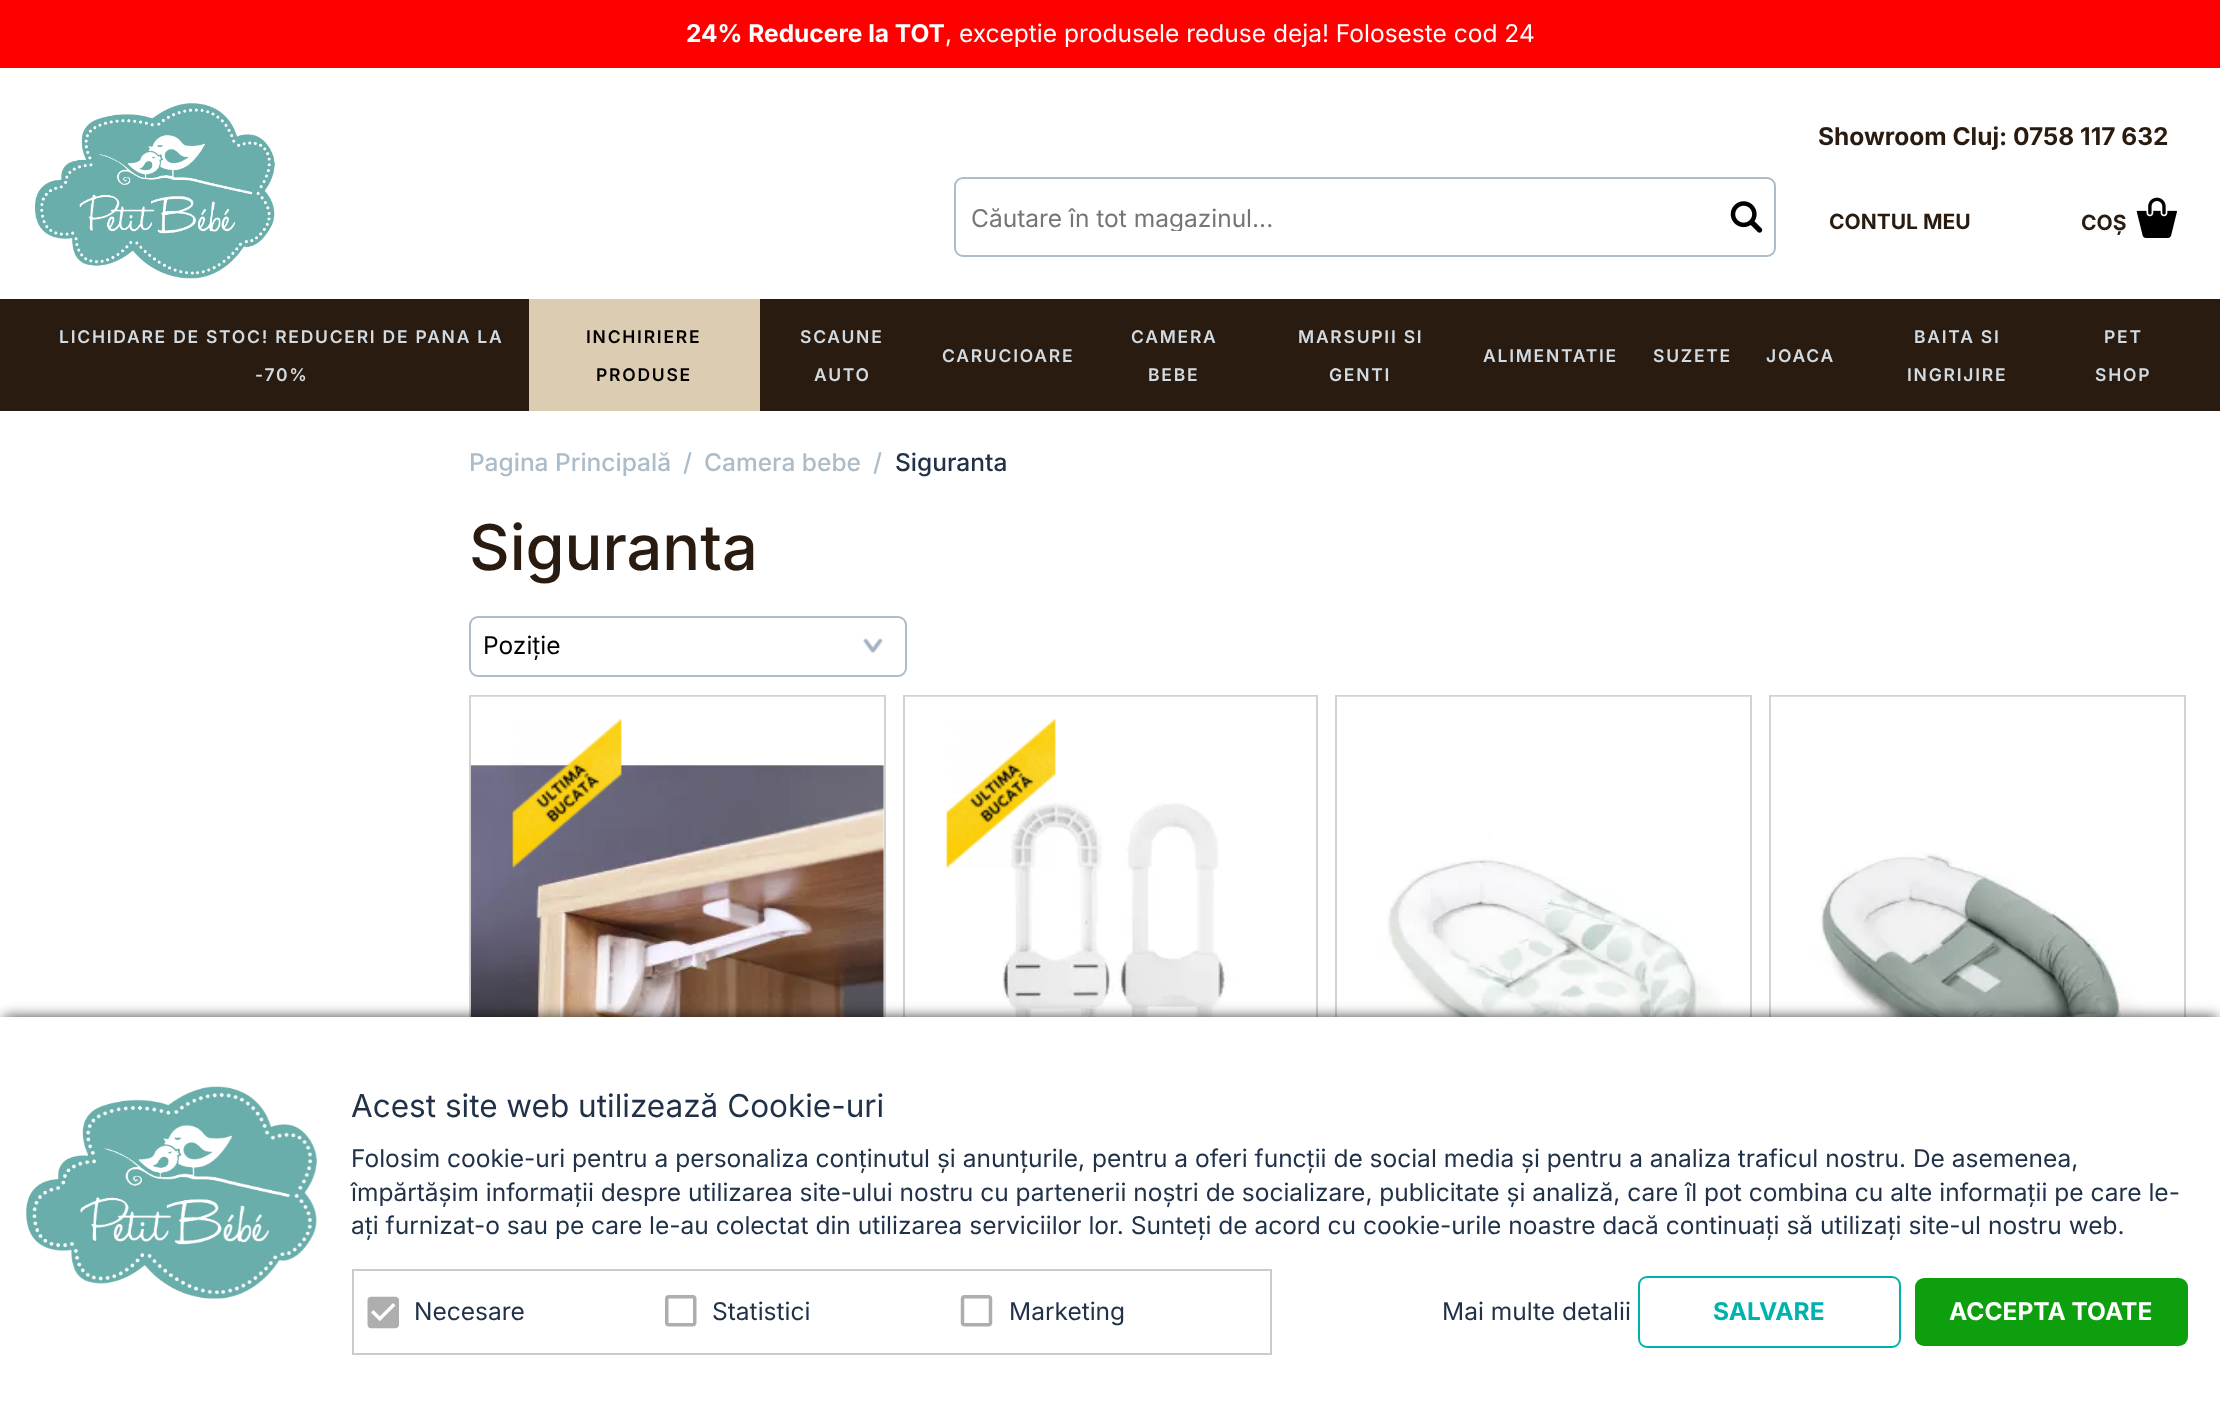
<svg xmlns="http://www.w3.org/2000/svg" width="2220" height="1423">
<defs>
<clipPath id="clip1"><rect x="971" y="201" width="725" height="30"/></clipPath>
</defs>
<rect width="100%" height="100%" fill="#fff"/>
<rect width="2220" height="68" fill="#f00"/>
<text x="686" y="42" style="font-family:Inter;font-size:24.5px;font-weight:bold;fill:#fff">24% Reducere la TOT</text>
<text x="945" y="42" style="font-family:Inter;font-size:24.5px;fill:#fff">, exceptie produsele reduse deja! Foloseste cod 24</text>
<image x="35" y="103" width="240" height="176" href="media/1.png"/>
<text x="1818" y="145" style="font-family:Inter;font-size:24.5px;font-weight:bold;fill:#291b0f">Showroom Cluj: 0758 117 632</text>
<rect x="955" y="178" width="820" height="78" rx="8" fill="none" stroke="#acbcc9" stroke-width="2"/>
<g clip-path="url(#clip1)">
<text x="971" y="227" style="font-family:Inter;font-size:24.5px;fill:#757575">Căutare în tot magazinul...</text>
</g>
<image x="1730" y="201" width="33" height="32" href="media/2.png"/>
<text x="1829" y="229" style="font-family:Inter;font-size:21px;font-weight:bold;fill:#291b0f">CONTUL MEU</text>
<text x="2081" y="230" style="font-family:Inter;font-size:21px;font-weight:bold;fill:#291b0f">COȘ</text>
<image x="2136" y="197" width="41" height="41" href="media/3.png"/>
<rect y="299" width="2220" height="112" fill="#291b0f"/>
<text x="59" y="343" style="font-family:Inter;font-size:17.5px;font-weight:600;letter-spacing:1.75px;fill:#d3dbe2">LICHIDARE DE STOC! REDUCERI DE PANA LA</text>
<text x="255" y="381" style="font-family:Inter;font-size:17.5px;font-weight:600;letter-spacing:1.75px;fill:#d3dbe2">-70%</text>
<rect x="529" y="299" width="231" height="112" fill="#dbccb2"/>
<text x="586" y="343" style="font-family:Inter;font-size:17.5px;font-weight:600;letter-spacing:1.75px;fill:#000">INCHIRIERE</text>
<text x="596" y="381" style="font-family:Inter;font-size:17.5px;font-weight:600;letter-spacing:1.75px;fill:#000">PRODUSE</text>
<text x="800" y="343" style="font-family:Inter;font-size:17.5px;font-weight:600;letter-spacing:1.75px;fill:#d3dbe2">SCAUNE</text>
<text x="814" y="381" style="font-family:Inter;font-size:17.5px;font-weight:600;letter-spacing:1.75px;fill:#d3dbe2">AUTO</text>
<text x="942" y="362" style="font-family:Inter;font-size:17.5px;font-weight:600;letter-spacing:1.75px;fill:#d3dbe2">CARUCIOARE</text>
<text x="1131" y="343" style="font-family:Inter;font-size:17.5px;font-weight:600;letter-spacing:1.75px;fill:#d3dbe2">CAMERA</text>
<text x="1148" y="381" style="font-family:Inter;font-size:17.5px;font-weight:600;letter-spacing:1.75px;fill:#d3dbe2">BEBE</text>
<text x="1298" y="343" style="font-family:Inter;font-size:17.5px;font-weight:600;letter-spacing:1.75px;fill:#d3dbe2">MARSUPII SI</text>
<text x="1329" y="381" style="font-family:Inter;font-size:17.5px;font-weight:600;letter-spacing:1.75px;fill:#d3dbe2">GENTI</text>
<text x="1483" y="362" style="font-family:Inter;font-size:17.5px;font-weight:600;letter-spacing:1.75px;fill:#d3dbe2">ALIMENTATIE</text>
<text x="1653" y="362" style="font-family:Inter;font-size:17.5px;font-weight:600;letter-spacing:1.75px;fill:#d3dbe2">SUZETE</text>
<text x="1766" y="362" style="font-family:Inter;font-size:17.5px;font-weight:600;letter-spacing:1.75px;fill:#d3dbe2">JOACA</text>
<text x="1914" y="343" style="font-family:Inter;font-size:17.5px;font-weight:600;letter-spacing:1.75px;fill:#d3dbe2">BAITA SI</text>
<text x="1907" y="381" style="font-family:Inter;font-size:17.5px;font-weight:600;letter-spacing:1.75px;fill:#d3dbe2">INGRIJIRE</text>
<text x="2104" y="343" style="font-family:Inter;font-size:17.5px;font-weight:600;letter-spacing:1.75px;fill:#d3dbe2">PET</text>
<text x="2095" y="381" style="font-family:Inter;font-size:17.5px;font-weight:600;letter-spacing:1.75px;fill:#d3dbe2">SHOP</text>
<text x="469" y="471" style="font-family:Inter;font-size:24.5px;font-weight:500;fill:#acbcc9">Pagina Principală</text>
<text x="683" y="471" style="font-family:Inter;font-size:24.5px;font-weight:500;fill:#acbcc9">/</text>
<text x="704" y="471" style="font-family:Inter;font-size:24.5px;font-weight:500;fill:#acbcc9">Camera bebe</text>
<text x="873" y="471" style="font-family:Inter;font-size:24.5px;font-weight:500;fill:#acbcc9">/</text>
<text x="895" y="471" style="font-family:Inter;font-size:24.5px;font-weight:500;fill:#213248">Siguranta</text>
<text x="469" y="570" style="font-family:Inter;font-size:63px;font-weight:500;fill:#291b0f">Siguranta</text>
<image x="863" y="638" width="21" height="16" href="media/4.png"/>
<rect x="470" y="617" width="436" height="59" rx="8" fill="none" stroke="#acbcc9" stroke-width="2"/>
<text x="483" y="654" style="font-family:Inter;font-size:24.5px;fill:#000">Poziție</text>
<rect x="470" y="696" width="415" height="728" fill="none" stroke="#d3d3d3" stroke-width="2"/>
<image x="470" y="696" width="414" height="321" href="media/5.png"/>
<image x="512" y="718" width="110" height="151" href="media/6.png"/>
<rect x="904" y="696" width="413" height="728" fill="none" stroke="#d3d3d3" stroke-width="2"/>
<image x="905" y="696" width="411" height="321" href="media/7.png"/>
<image x="946" y="718" width="110" height="151" href="media/8.png"/>
<rect x="1336" y="696" width="415" height="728" fill="none" stroke="#d3d3d3" stroke-width="2"/>
<image x="1337" y="696" width="413" height="321" href="media/9.png"/>
<rect x="1770" y="696" width="415" height="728" fill="none" stroke="#d3d3d3" stroke-width="2"/>
<image x="1771" y="696" width="413" height="321" href="media/10.png"/>
<rect x="4" y="1017" width="2213" height="401" fill="#000000bf" filter="blur(7px)"/>
<rect y="1017" width="2220" height="406" fill="#fff"/>
<image x="26" y="1086" width="291" height="213" href="media/11.png"/>
<text x="351" y="1117" style="font-family:Inter;font-size:31.5px;fill:#213248">Acest site web utilizează Cookie-uri</text>
<text x="351" y="1167" style="font-family:Inter;font-size:24.5px;fill:#213248">Folosim cookie-uri pentru a personaliza conținutul și anunțurile, pentru a oferi funcții de social media și pentru a analiza traficul nostru. De asemenea,</text>
<text x="351" y="1201" style="font-family:Inter;font-size:24.5px;fill:#213248">împărtășim informații despre utilizarea site-ului nostru cu partenerii noștri de socializare, publicitate și analiză, care îl pot combina cu alte informații pe care le-</text>
<text x="351" y="1234" style="font-family:Inter;font-size:24.5px;fill:#213248">ați furnizat-o sau pe care le-au colectat din utilizarea serviciilor lor. Sunteți de acord cu cookie-urile noastre dacă continuați să utilizați site-ul nostru web.</text>
<rect x="353" y="1270" width="918" height="84" fill="none" stroke="#ccc" stroke-width="2"/>
<image x="367" y="1296" width="32" height="33" href="media/12.png"/>
<text x="414" y="1320" style="font-family:Inter;font-size:24.5px;fill:#213248">Necesare</text>
<image x="665" y="1295" width="32" height="32" href="media/13.png"/>
<text x="712" y="1320" style="font-family:Inter;font-size:24.5px;fill:#213248">Statistici</text>
<image x="960" y="1295" width="33" height="32" href="media/14.png"/>
<text x="1009" y="1320" style="font-family:Inter;font-size:24.5px;fill:#213248">Marketing</text>
<text x="1442" y="1320" style="font-family:Inter;font-size:24.5px;fill:#213248">Mai multe detalii</text>
<rect x="1639" y="1277" width="261" height="70" rx="8" fill="none" stroke="#00b2ae" stroke-width="2"/>
<text x="1713" y="1320" style="font-family:Inter;font-size:24.5px;font-weight:bold;fill:#00b2ae">SALVARE</text>
<rect x="1915" y="1278" width="273" height="68" rx="9" fill="#0d9f0d"/>
<text x="1949" y="1320" style="font-family:Inter;font-size:24.5px;font-weight:bold;fill:#fff">ACCEPTA TOATE</text>
</svg>
